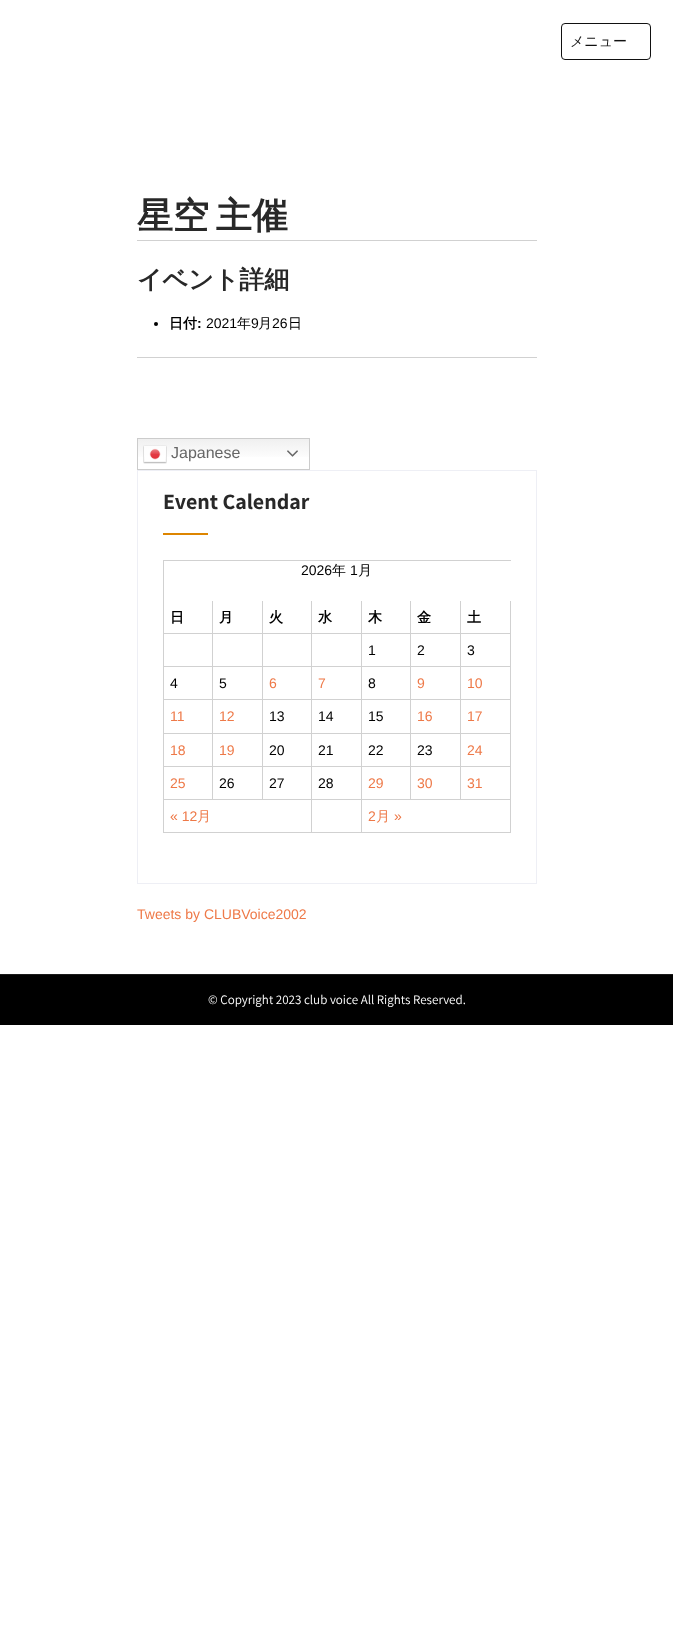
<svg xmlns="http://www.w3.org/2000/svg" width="673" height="1643">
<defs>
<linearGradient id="g1" gradientUnits="userSpaceOnUse" x1="224" y1="438" x2="224" y2="470"><stop offset="0" stop-color="#efefef"/><stop offset="0.7" stop-color="#fff"/></linearGradient>
</defs>
<rect width="100%" height="100%" fill="#fff"/>
<rect x="561.5" y="23.5" width="89" height="36" rx="3.5" fill="none" stroke="#111"/>
<text x="570" y="46" style="font-family:WenQuanYi Zen Hei;font-size:14px;font-weight:500;fill:#111">メニュー</text>
<text x="137" y="228" word-spacing="-4" style="font-family:WenQuanYi Zen Hei;font-size:36px;font-weight:bold;fill:#282828">星空 主催</text>
<rect x="137" y="240" width="400" height="1" fill="#d1d1d1"/>
<text x="137" y="288" style="font-family:WenQuanYi Zen Hei;font-size:25px;font-weight:bold;fill:#282828">イベント詳細</text>
<circle cx="156" cy="324" r="2" fill="#000"/>
<text x="169" y="328" style="font-family:WenQuanYi Zen Hei;font-size:14px;font-weight:bold;fill:#000">日付</text>
<text x="197" y="328" style="font-family:Liberation Sans;font-size:14px;font-weight:bold;fill:#000">:</text>
<text x="206" y="328" style="font-family:Liberation Sans;font-size:14px;fill:#000">2021</text>
<text x="237" y="328" style="font-family:WenQuanYi Zen Hei;font-size:14px;font-weight:500;fill:#000">年</text>
<text x="251" y="328" style="font-family:Liberation Sans;font-size:14px;fill:#000">9</text>
<text x="258" y="328" style="font-family:WenQuanYi Zen Hei;font-size:14px;font-weight:500;fill:#000">月</text>
<text x="272" y="328" style="font-family:Liberation Sans;font-size:14px;fill:#000">26</text>
<text x="288" y="328" style="font-family:WenQuanYi Zen Hei;font-size:14px;font-weight:500;fill:#000">日</text>
<rect x="137" y="357" width="400" height="1" fill="#d1d1d1"/>
<rect x="138" y="439" width="171" height="18" fill="url(#g1)"/>
<rect x="137.5" y="438.5" width="172" height="31" fill="none" stroke="#ccc"/>
<image x="143" y="445" width="24" height="19" href="media/1.png"/>
<text x="171" y="458" style="font-family:Liberation Sans;font-size:16px;fill:#666">Japanese</text>
<image x="287" y="450" width="11" height="7" href="media/2.png"/>
<rect x="137" y="470" width="400" height="1" fill="#eeeff5"/>
<rect x="536" y="470" width="1" height="414" fill="#eeeff5"/>
<rect x="137" y="470" width="1" height="90" fill="#eeeff5"/>
<text x="163" y="509" style="font-family:Assistant;font-size:22px;font-weight:bold;fill:#282828">Event Calendar</text>
<rect x="163" y="533" width="45" height="2" fill="#dd8500"/>
<rect x="137" y="883" width="400" height="1" fill="#eeeff5"/>
<rect x="137" y="560" width="1" height="324" fill="#eeeff5"/>
<rect x="163" y="560" width="348" height="1" fill="#d1d1d1"/>
<rect x="163" y="560" width="1" height="273" fill="#d1d1d1"/>
<text x="301" y="575" style="font-family:Liberation Sans;font-size:14px;fill:#000">2026</text>
<text x="332" y="575" style="font-family:WenQuanYi Zen Hei;font-size:14px;font-weight:500;fill:#000">年</text>
<text x="350" y="575" style="font-family:Liberation Sans;font-size:14px;fill:#000">1</text>
<text x="358" y="575" style="font-family:WenQuanYi Zen Hei;font-size:14px;font-weight:500;fill:#000">月</text>
<rect x="212" y="601" width="1" height="199" fill="#d1d1d1"/>
<rect x="164" y="633" width="49" height="1" fill="#d1d1d1"/>
<text x="170" y="622" style="font-family:WenQuanYi Zen Hei;font-size:14px;font-weight:bold;fill:#000">日</text>
<rect x="262" y="601" width="1" height="199" fill="#d1d1d1"/>
<rect x="213" y="633" width="50" height="1" fill="#d1d1d1"/>
<text x="219" y="622" style="font-family:WenQuanYi Zen Hei;font-size:14px;font-weight:bold;fill:#000">月</text>
<rect x="311" y="601" width="1" height="232" fill="#d1d1d1"/>
<rect x="263" y="633" width="49" height="1" fill="#d1d1d1"/>
<text x="269" y="622" style="font-family:WenQuanYi Zen Hei;font-size:14px;font-weight:bold;fill:#000">火</text>
<rect x="361" y="601" width="1" height="232" fill="#d1d1d1"/>
<rect x="312" y="633" width="50" height="1" fill="#d1d1d1"/>
<text x="318" y="622" style="font-family:WenQuanYi Zen Hei;font-size:14px;font-weight:bold;fill:#000">水</text>
<rect x="410" y="601" width="1" height="199" fill="#d1d1d1"/>
<rect x="362" y="633" width="49" height="1" fill="#d1d1d1"/>
<text x="368" y="622" style="font-family:WenQuanYi Zen Hei;font-size:14px;font-weight:bold;fill:#000">木</text>
<rect x="460" y="601" width="1" height="199" fill="#d1d1d1"/>
<rect x="411" y="633" width="50" height="1" fill="#d1d1d1"/>
<text x="417" y="622" style="font-family:WenQuanYi Zen Hei;font-size:14px;font-weight:bold;fill:#000">金</text>
<rect x="510" y="601" width="1" height="232" fill="#d1d1d1"/>
<rect x="461" y="633" width="50" height="1" fill="#d1d1d1"/>
<text x="467" y="622" style="font-family:WenQuanYi Zen Hei;font-size:14px;font-weight:bold;fill:#000">土</text>
<text x="368" y="655" style="font-family:Liberation Sans;font-size:14px;fill:#000">1</text>
<text x="417" y="655" style="font-family:Liberation Sans;font-size:14px;fill:#000">2</text>
<text x="467" y="655" style="font-family:Liberation Sans;font-size:14px;fill:#000">3</text>
<rect x="164" y="666" width="347" height="1" fill="#d1d1d1"/>
<rect x="164" y="699" width="347" height="1" fill="#d1d1d1"/>
<text x="170" y="688" style="font-family:Liberation Sans;font-size:14px;fill:#000">4</text>
<text x="219" y="688" style="font-family:Liberation Sans;font-size:14px;fill:#000">5</text>
<text x="269" y="688" style="font-family:Liberation Sans;font-size:14px;fill:#ee7948">6</text>
<text x="318" y="688" style="font-family:Liberation Sans;font-size:14px;fill:#ee7948">7</text>
<text x="368" y="688" style="font-family:Liberation Sans;font-size:14px;fill:#000">8</text>
<text x="417" y="688" style="font-family:Liberation Sans;font-size:14px;fill:#ee7948">9</text>
<text x="467" y="688" style="font-family:Liberation Sans;font-size:14px;fill:#ee7948">10</text>
<rect x="164" y="733" width="347" height="1" fill="#d1d1d1"/>
<text x="170" y="721" style="font-family:Liberation Sans;font-size:14px;fill:#ee7948">11</text>
<text x="219" y="721" style="font-family:Liberation Sans;font-size:14px;fill:#ee7948">12</text>
<text x="269" y="721" style="font-family:Liberation Sans;font-size:14px;fill:#000">13</text>
<text x="318" y="721" style="font-family:Liberation Sans;font-size:14px;fill:#000">14</text>
<text x="368" y="721" style="font-family:Liberation Sans;font-size:14px;fill:#000">15</text>
<text x="417" y="721" style="font-family:Liberation Sans;font-size:14px;fill:#ee7948">16</text>
<text x="467" y="721" style="font-family:Liberation Sans;font-size:14px;fill:#ee7948">17</text>
<rect x="164" y="766" width="347" height="1" fill="#d1d1d1"/>
<text x="170" y="755" style="font-family:Liberation Sans;font-size:14px;fill:#ee7948">18</text>
<text x="219" y="755" style="font-family:Liberation Sans;font-size:14px;fill:#ee7948">19</text>
<text x="269" y="755" style="font-family:Liberation Sans;font-size:14px;fill:#000">20</text>
<text x="318" y="755" style="font-family:Liberation Sans;font-size:14px;fill:#000">21</text>
<text x="368" y="755" style="font-family:Liberation Sans;font-size:14px;fill:#000">22</text>
<text x="417" y="755" style="font-family:Liberation Sans;font-size:14px;fill:#000">23</text>
<text x="467" y="755" style="font-family:Liberation Sans;font-size:14px;fill:#ee7948">24</text>
<rect x="164" y="799" width="347" height="1" fill="#d1d1d1"/>
<text x="170" y="788" style="font-family:Liberation Sans;font-size:14px;fill:#ee7948">25</text>
<text x="219" y="788" style="font-family:Liberation Sans;font-size:14px;fill:#000">26</text>
<text x="269" y="788" style="font-family:Liberation Sans;font-size:14px;fill:#000">27</text>
<text x="318" y="788" style="font-family:Liberation Sans;font-size:14px;fill:#000">28</text>
<text x="368" y="788" style="font-family:Liberation Sans;font-size:14px;fill:#ee7948">29</text>
<text x="417" y="788" style="font-family:Liberation Sans;font-size:14px;fill:#ee7948">30</text>
<text x="467" y="788" style="font-family:Liberation Sans;font-size:14px;fill:#ee7948">31</text>
<rect x="164" y="832" width="347" height="1" fill="#d1d1d1"/>
<text x="170" y="821" style="font-family:Liberation Sans;font-size:14px;fill:#ee7948">« 12</text>
<text x="197" y="821" style="font-family:WenQuanYi Zen Hei;font-size:14px;font-weight:500;fill:#ee7948">月</text>
<text x="368" y="821" style="font-family:Liberation Sans;font-size:14px;fill:#ee7948">2</text>
<text x="376" y="821" style="font-family:WenQuanYi Zen Hei;font-size:14px;font-weight:500;fill:#ee7948">月</text>
<text x="394" y="821" style="font-family:Liberation Sans;font-size:14px;fill:#ee7948">»</text>
<text x="137" y="919" style="font-family:Liberation Sans;font-size:14px;fill:#ee7948">Tweets by CLUBVoice2002</text>
<rect y="975" width="673" height="50" fill="#000"/>
<rect y="974" width="673" height="1" fill="#1a1a1a"/>
<text x="208" y="1004" style="font-family:Assistant;font-size:13px;fill:#fff">© Copyright 2023 club voice All Rights Reserved.</text>
</svg>
